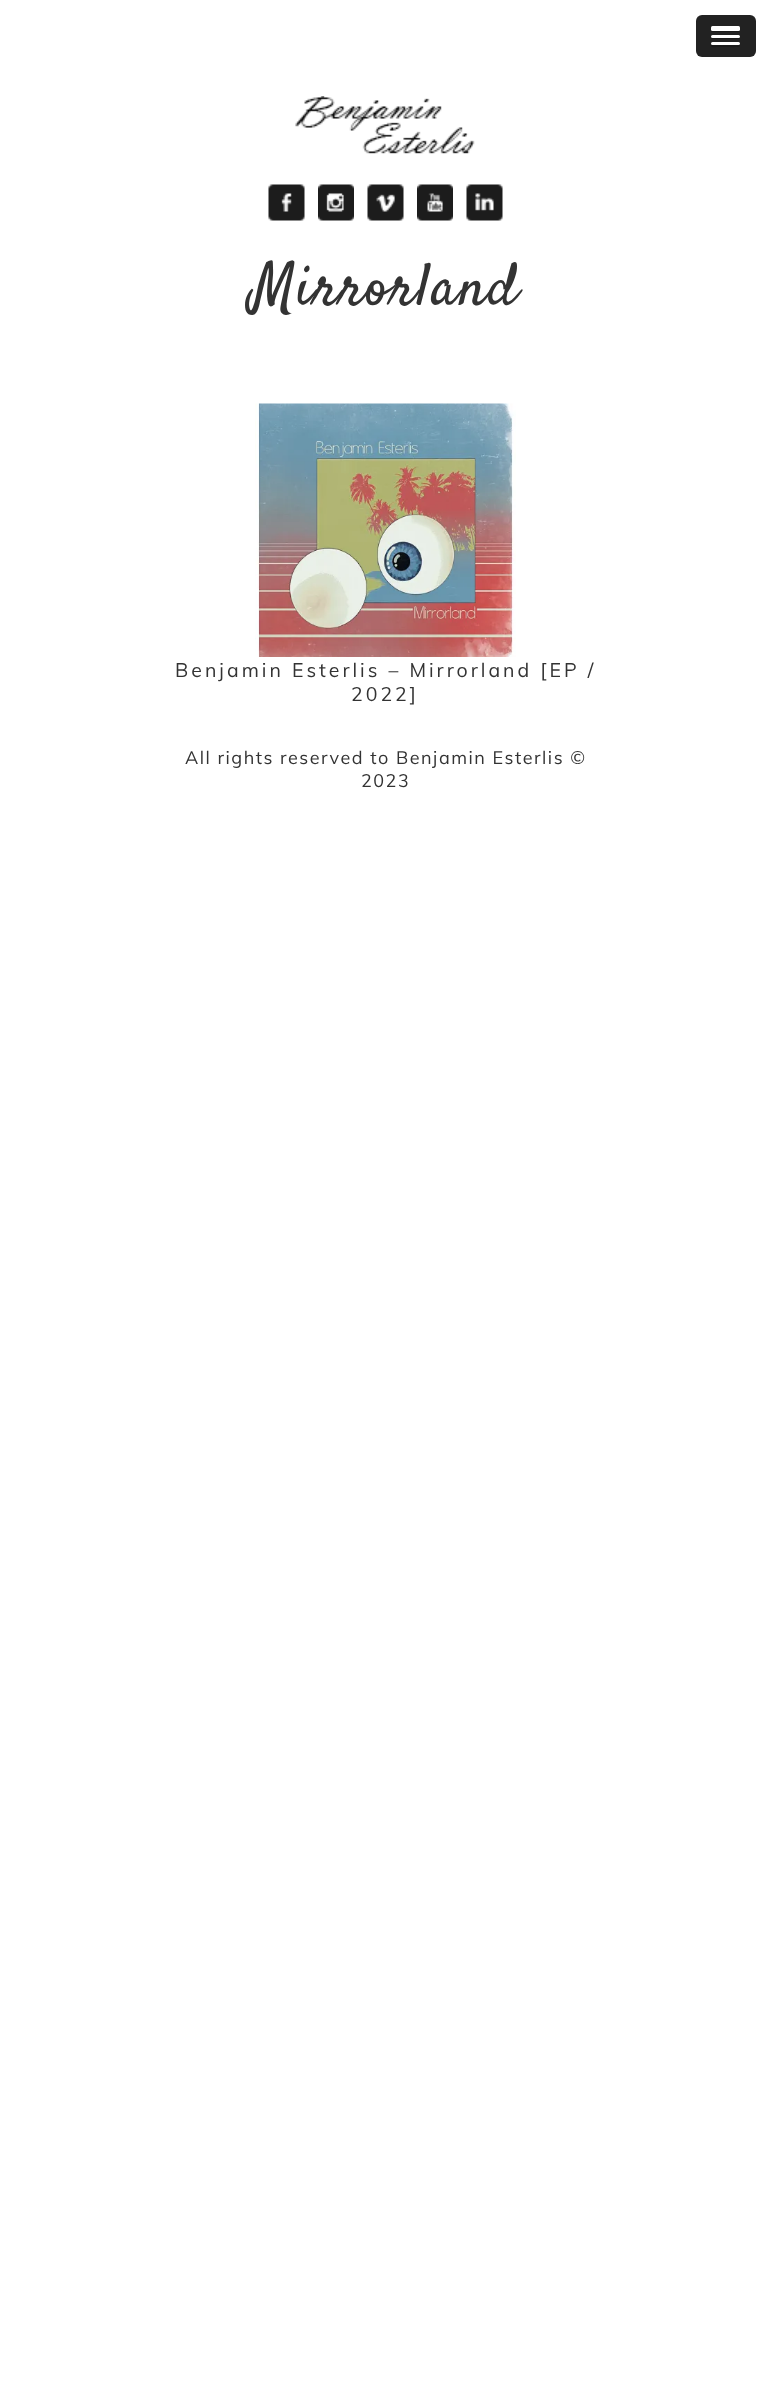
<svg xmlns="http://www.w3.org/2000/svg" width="771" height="2402">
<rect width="100%" height="100%" fill="#fff"/>
<rect x="696" y="15" width="60" height="42" rx="6" fill="#222"/>
<path d="M711 28.5c0 4.5 1 3.5 6 3.5h17c3.5 0 6 1 6-2.5c0-1 0-1.5-.5-2v1c0 1-.5 1.5-1.5 1.5h-25.5c-1 0-1.5-.5-1.5-1.5z" fill="#1a1a1a"/>
<rect x="711" y="26" width="29" height="5" rx="1.5" fill="#fff"/>
<path d="M711 36.5c-1.5 3 3 2.5 6 2.5h22c1-.5 1.5-2 .5-2.5l-1 1h-26z" fill="#1a1a1a"/>
<rect x="711" y="35" width="29" height="3" rx="1.5" fill="#fff"/>
<path d="M711.5 44.5l-.5 1.5c.5 2 5.5 1 6 1h8.5c2 0 13 .5 14-.5c.5-.5 .5-1.5 0-2.5c-1 2-5.5 1-5.5 1c-3 0-21.5 .5-22.5-.5z" fill="#1a1a1a"/>
<rect x="711" y="42" width="29" height="3" rx="1.5" fill="#fff"/>
<image x="295" y="96" width="180" height="58" href="media/1.png"/>
<image x="268" y="184" width="37" height="37" href="media/2.png"/>
<image x="318" y="184" width="36" height="37" href="media/3.png"/>
<image x="367" y="184" width="37" height="37" href="media/4.png"/>
<image x="417" y="184" width="36" height="37" href="media/5.png"/>
<image x="466" y="184" width="37" height="37" href="media/6.png"/>
<text x="251" y="304" style="font-family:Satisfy;font-size:60px;letter-spacing:1.5px;fill:#333">Mirrorland</text>
<image x="255" y="403" width="261" height="254" href="media/7.png"/>
<text x="175" y="677" style="font-family:Muli;font-size:19.5px;letter-spacing:3px;fill:#333">Benjamin Esterlis – Mirrorland [EP /</text>
<text x="351" y="701" style="font-family:Muli;font-size:19.5px;letter-spacing:3px;fill:#333">2022]</text>
<text x="185" y="764" style="font-family:Muli;font-size:18px;letter-spacing:1.5px;fill:#333">All rights reserved to Benjamin Esterlis ©</text>
<text x="361" y="787" style="font-family:Muli;font-size:18px;letter-spacing:1.5px;fill:#333">2023</text>
</svg>
